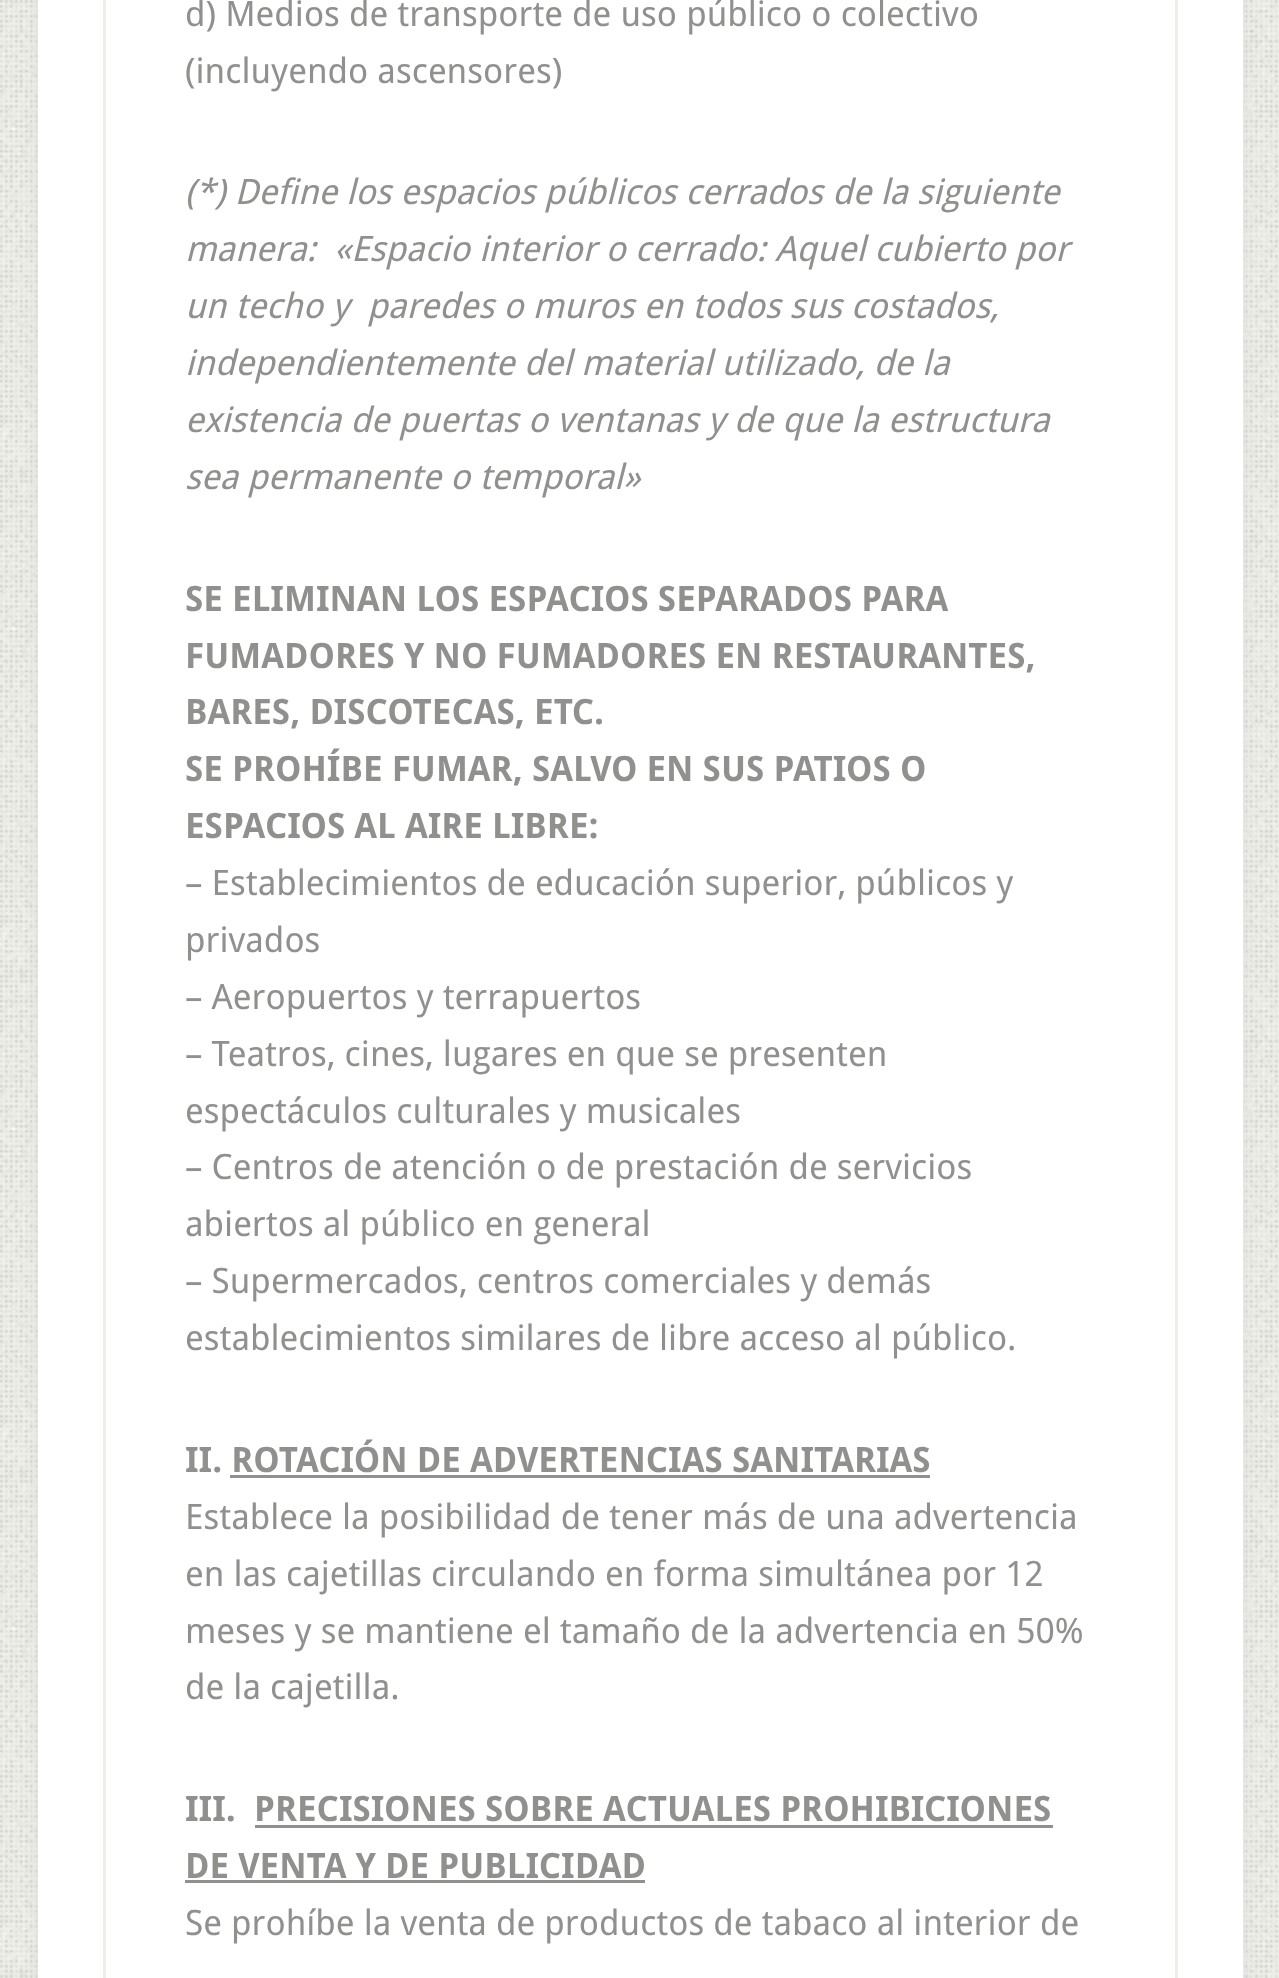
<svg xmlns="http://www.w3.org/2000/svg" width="1279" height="1978">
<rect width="100%" height="100%" fill="#fff"/>
<image x="0" y="0" width="1279" height="1978" href="media/1.png"/>
<rect x="38" y="-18" width="1205" height="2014" fill="#ddd" filter="blur(6px)"/>
<rect x="38" width="1205" height="1978" fill="#fff"/>
<rect x="104.5" y="-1.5" width="1072" height="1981" fill="none" stroke="#eeeee8" stroke-width="3"/>
<text x="185" y="26" style="font-family:Droid Sans;font-size:35px;fill:#90908e">d) Medios de transporte de uso público o colectivo</text>
<text x="185" y="83" style="font-family:Droid Sans;font-size:35px;fill:#90908e">(incluyendo ascensores)</text>
<text x="185" y="204" style="font-family:Droid Sans;font-size:35px;font-style:italic;fill:#90908e">(*) Define los espacios públicos cerrados de la siguiente</text>
<text x="185" y="261" style="font-family:Droid Sans;font-size:35px;font-style:italic;fill:#90908e" xml:space="preserve">manera:  «Espacio interior o cerrado: Aquel cubierto por</text>
<text x="185" y="318" style="font-family:Droid Sans;font-size:35px;font-style:italic;fill:#90908e" xml:space="preserve">un techo y  paredes o muros en todos sus costados,</text>
<text x="185" y="375" style="font-family:Droid Sans;font-size:35px;font-style:italic;fill:#90908e">independientemente del material utilizado, de la</text>
<text x="185" y="432" style="font-family:Droid Sans;font-size:35px;font-style:italic;fill:#90908e">existencia de puertas o ventanas y de que la estructura</text>
<text x="185" y="489" style="font-family:Droid Sans;font-size:35px;font-style:italic;fill:#90908e">sea permanente o temporal»</text>
<text x="185" y="611" style="font-family:Droid Sans;font-size:35px;font-weight:bold;fill:#90908e">SE ELIMINAN LOS ESPACIOS SEPARADOS PARA</text>
<text x="185" y="668" style="font-family:Droid Sans;font-size:35px;font-weight:bold;fill:#90908e">FUMADORES Y NO FUMADORES EN RESTAURANTES,</text>
<text x="185" y="724" style="font-family:Droid Sans;font-size:35px;font-weight:bold;fill:#90908e">BARES, DISCOTECAS, ETC.</text>
<text x="185" y="781" style="font-family:Droid Sans;font-size:35px;font-weight:bold;fill:#90908e">SE PROHÍBE FUMAR, SALVO EN SUS PATIOS O</text>
<text x="185" y="838" style="font-family:Droid Sans;font-size:35px;font-weight:bold;fill:#90908e">ESPACIOS AL AIRE LIBRE:</text>
<text x="185" y="895" style="font-family:Droid Sans;font-size:35px;fill:#90908e">– Establecimientos de educación superior, públicos y</text>
<text x="185" y="952" style="font-family:Droid Sans;font-size:35px;fill:#90908e">privados</text>
<text x="185" y="1009" style="font-family:Droid Sans;font-size:35px;fill:#90908e">– Aeropuertos y terrapuertos</text>
<text x="185" y="1066" style="font-family:Droid Sans;font-size:35px;fill:#90908e">– Teatros, cines, lugares en que se presenten</text>
<text x="185" y="1123" style="font-family:Droid Sans;font-size:35px;fill:#90908e">espectáculos culturales y musicales</text>
<text x="185" y="1179" style="font-family:Droid Sans;font-size:35px;fill:#90908e">– Centros de atención o de prestación de servicios</text>
<text x="185" y="1236" style="font-family:Droid Sans;font-size:35px;fill:#90908e">abiertos al público en general</text>
<text x="185" y="1293" style="font-family:Droid Sans;font-size:35px;fill:#90908e">– Supermercados, centros comerciales y demás</text>
<text x="185" y="1350" style="font-family:Droid Sans;font-size:35px;fill:#90908e">establecimientos similares de libre acceso al público.</text>
<text x="185" y="1472" style="font-family:Droid Sans;font-size:35px;font-weight:bold;fill:#90908e">II. ROTACIÓN DE ADVERTENCIAS SANITARIAS</text>
<rect x="230" y="1475" width="700" height="3" fill="#90908e"/>
<text x="185" y="1529" style="font-family:Droid Sans;font-size:35px;fill:#90908e">Establece la posibilidad de tener más de una advertencia</text>
<text x="185" y="1586" style="font-family:Droid Sans;font-size:35px;fill:#90908e">en las cajetillas circulando en forma simultánea por 12</text>
<text x="185" y="1643" style="font-family:Droid Sans;font-size:35px;fill:#90908e">meses y se mantiene el tamaño de la advertencia en 50%</text>
<text x="185" y="1699" style="font-family:Droid Sans;font-size:35px;fill:#90908e">de la cajetilla.</text>
<text x="185" y="1821" style="font-family:Droid Sans;font-size:35px;font-weight:bold;fill:#90908e">III.</text>
<text x="254" y="1821" style="font-family:Droid Sans;font-size:35px;font-weight:bold;fill:#90908e">PRECISIONES SOBRE ACTUALES PROHIBICIONES</text>
<rect x="255" y="1825" width="798" height="3" fill="#90908e"/>
<text x="185" y="1878" style="font-family:Droid Sans;font-size:35px;font-weight:bold;fill:#90908e">DE VENTA Y DE PUBLICIDAD</text>
<rect x="185" y="1880" width="460" height="3" fill="#90908e"/>
<text x="185" y="1935" style="font-family:Droid Sans;font-size:35px;fill:#90908e">Se prohíbe la venta de productos de tabaco al interior de</text>
</svg>
